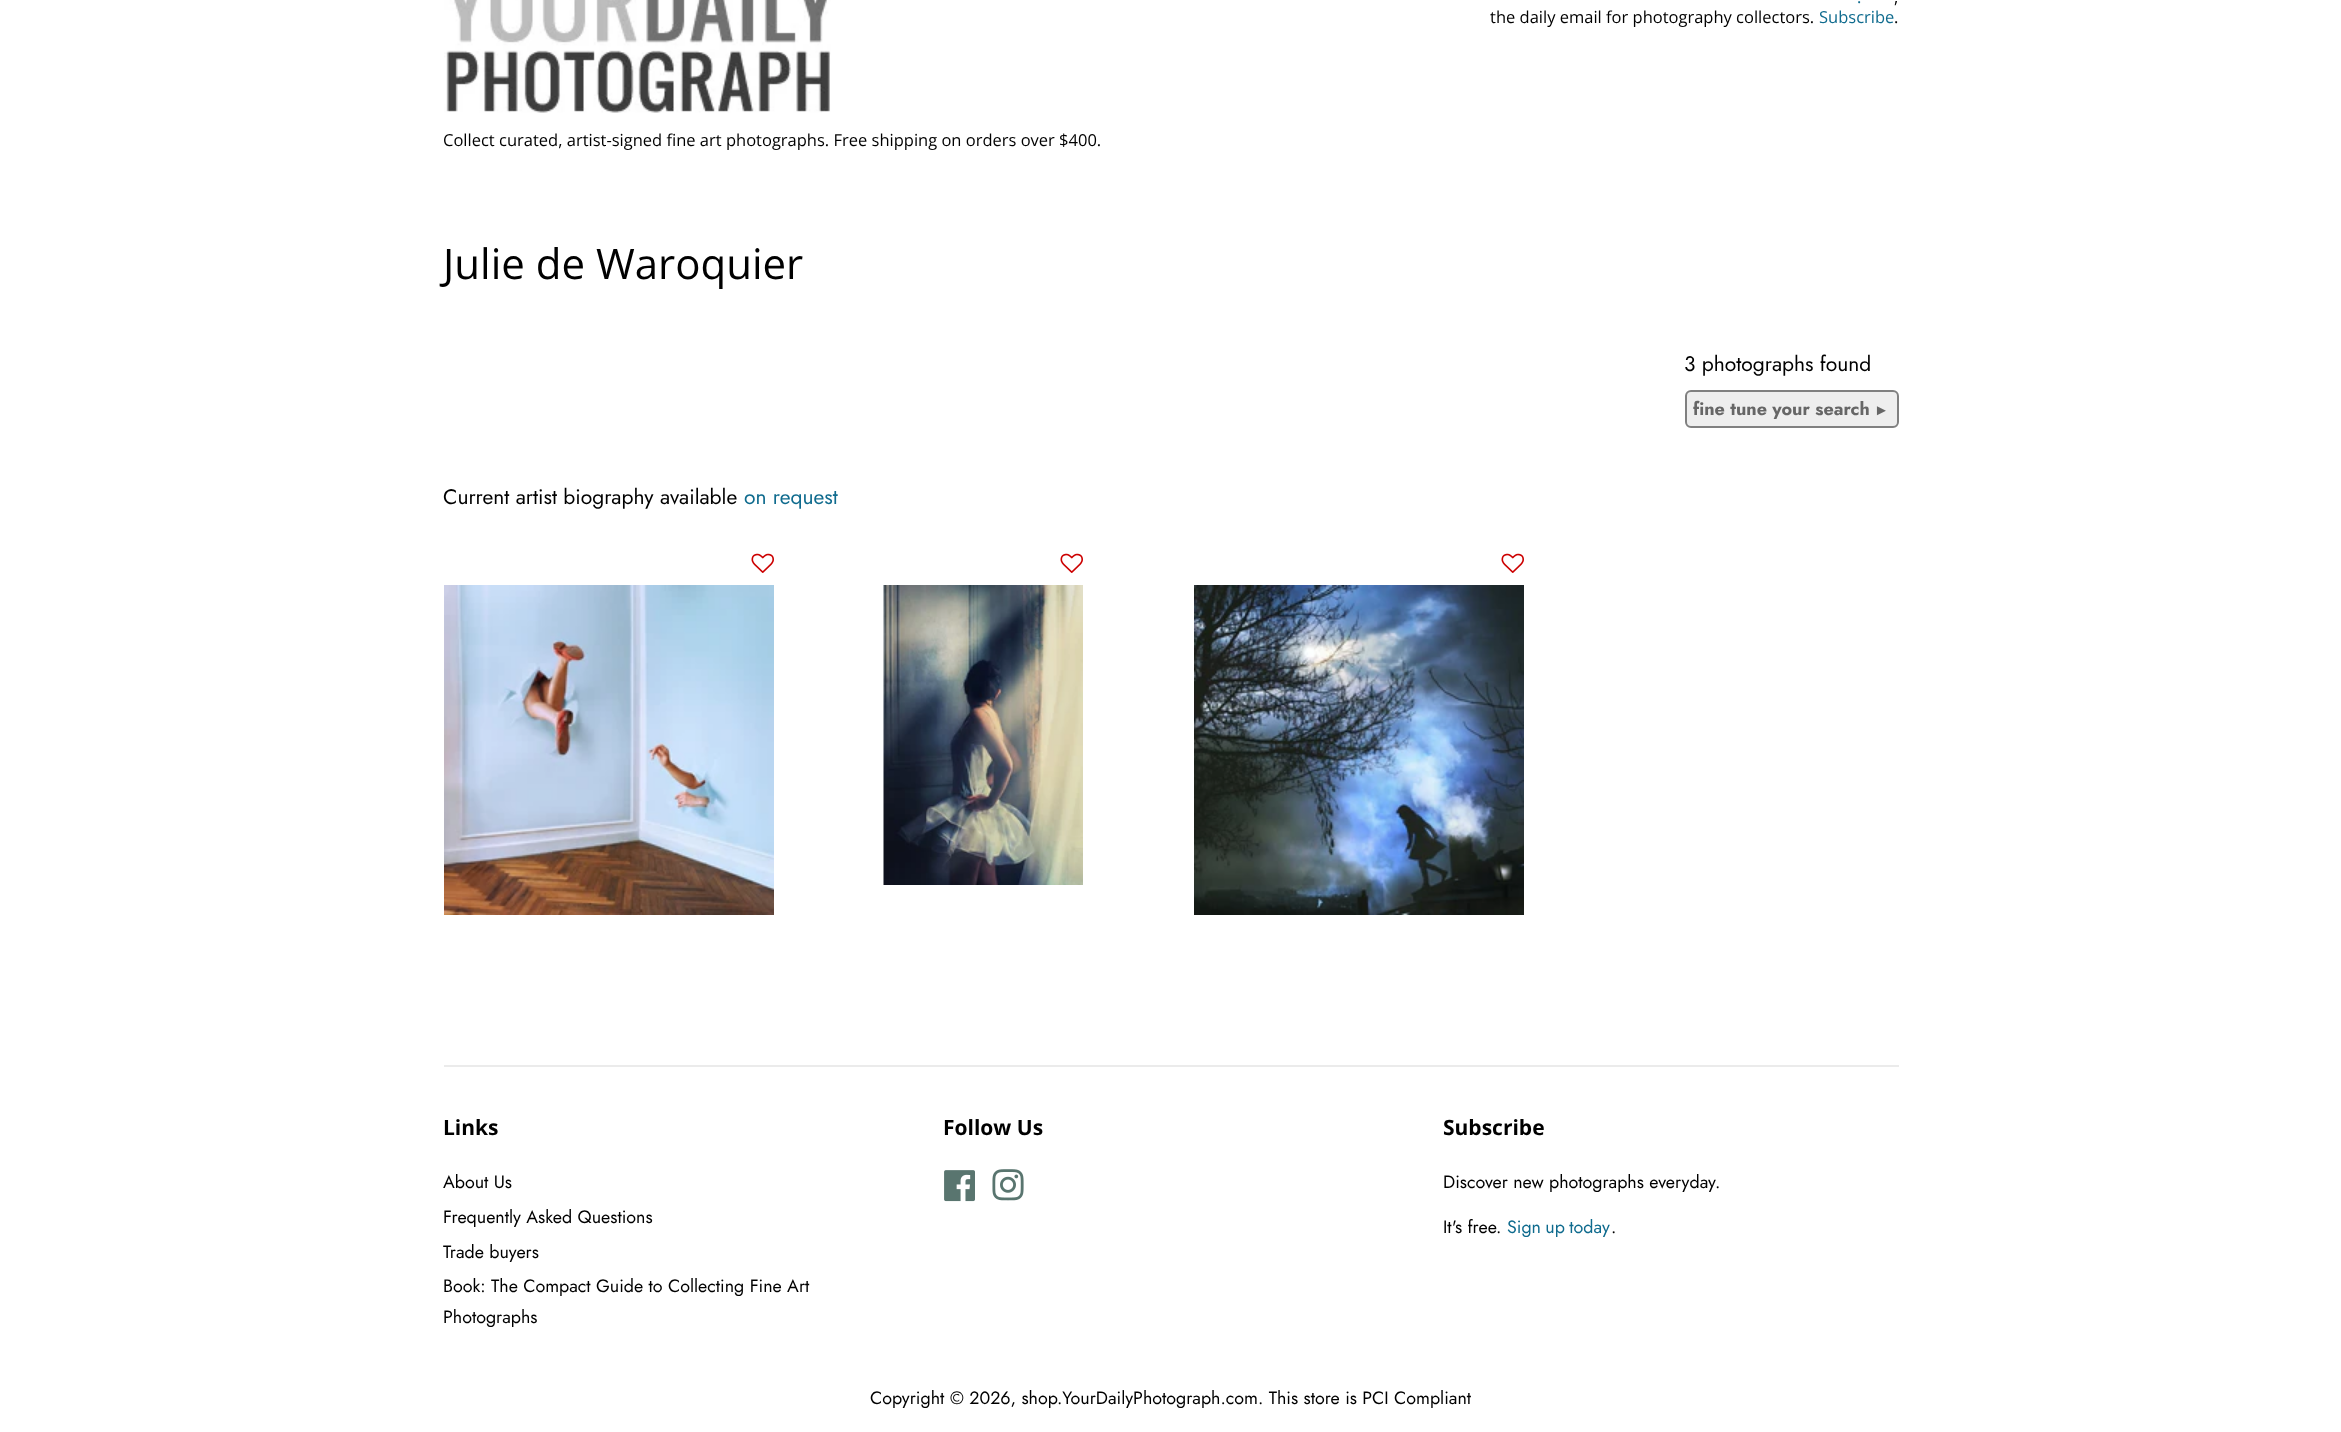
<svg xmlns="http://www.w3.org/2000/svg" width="2341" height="1432">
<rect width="100%" height="100%" fill="#fff"/>
<text x="1857" y="3" style="font-family:Open Sans;font-size:16.5px;fill:#0f6b8e">.</text>
<text x="1894" y="3" style="font-family:Open Sans;font-size:16.5px;fill:#000">,</text>
<text x="1490" y="23" style="font-family:Open Sans;font-size:16.5px;fill:#000">the daily email for photography collectors.</text>
<text x="1819" y="23" style="font-family:Open Sans;font-size:16.5px;fill:#0f6b8e">Subscribe</text>
<text x="1894" y="23" style="font-family:Open Sans;font-size:16.5px;fill:#000">.</text>
<image x="444" y="0" width="387" height="113" href="media/1.png"/>
<text x="443" y="146" style="font-family:Open Sans;font-size:16.5px;fill:#000">Collect curated, artist-signed fine art photographs. Free shipping on orders over $400.</text>
<text x="443" y="279" style="font-family:Open Sans;font-size:42px;fill:#000">Julie de Waroquier</text>
<text x="1684" y="371" style="font-family:Jost;font-size:21px;fill:#000">3 photographs found</text>
<rect x="1686" y="391" width="212" height="36" rx="5" fill="#eee" stroke="#808080" stroke-width="2"/>
<text x="1693" y="415" style="font-family:Jost;font-size:18px;font-weight:bold;fill:#666">fine tune your search</text>
<text x="1874" y="415" style="font-family:Liberation Sans;font-size:15px;fill:#666">►</text>
<text x="443" y="504" style="font-family:Jost;font-size:21px;fill:#000">Current artist biography available</text>
<text x="744" y="504" style="font-family:Jost;font-size:21px;fill:#0f6b8e">on request</text>
<image x="751" y="553" width="23" height="20" href="media/2.png"/>
<image x="444" y="585" width="330" height="330" href="media/3.png"/>
<image x="1060" y="553" width="23" height="20" href="media/2.png"/>
<image x="883" y="585" width="200" height="300" href="media/4.png"/>
<image x="1501" y="553" width="23" height="20" href="media/2.png"/>
<image x="1194" y="585" width="330" height="330" href="media/5.png"/>
<rect x="444" y="1065" width="1455" height="2" fill="#ebebeb"/>
<text x="443" y="1135" style="font-family:Open Sans;font-size:21px;font-weight:bold;fill:#000">Links</text>
<text x="443" y="1188" style="font-family:Jost;font-size:17.85px;fill:#000">About Us</text>
<text x="443" y="1223" style="font-family:Jost;font-size:17.85px;fill:#000">Frequently Asked Questions</text>
<text x="443" y="1258" style="font-family:Jost;font-size:17.85px;fill:#000">Trade buyers</text>
<text x="443" y="1292" style="font-family:Jost;font-size:17.85px;fill:#000">Book: The Compact Guide to Collecting Fine Art</text>
<text x="443" y="1323" style="font-family:Jost;font-size:17.85px;fill:#000">Photographs</text>
<text x="943" y="1135" style="font-family:Open Sans;font-size:21px;font-weight:bold;fill:#000">Follow Us</text>
<image x="944" y="1170" width="31" height="32" href="media/6.png"/>
<image x="992" y="1169" width="32" height="32" href="media/7.png"/>
<text x="1443" y="1135" style="font-family:Open Sans;font-size:21px;font-weight:bold;fill:#000">Subscribe</text>
<text x="1443" y="1188" style="font-family:Jost;font-size:17.85px;fill:#000">Discover new photographs everyday.</text>
<text x="1443" y="1233" style="font-family:Jost;font-size:17.85px;fill:#000">It's free.</text>
<text x="1507" y="1233" word-spacing="-1" style="font-family:Jost;font-size:17.85px;fill:#0f6b8e">Sign up today</text>
<text x="1611" y="1233" style="font-family:Jost;font-size:17.85px;fill:#000">.</text>
<text x="870" y="1404" style="font-family:Jost;font-size:17.85px;fill:#000">Copyright © 2026, shop.YourDailyPhotograph.com. This store is PCI Compliant</text>
</svg>
